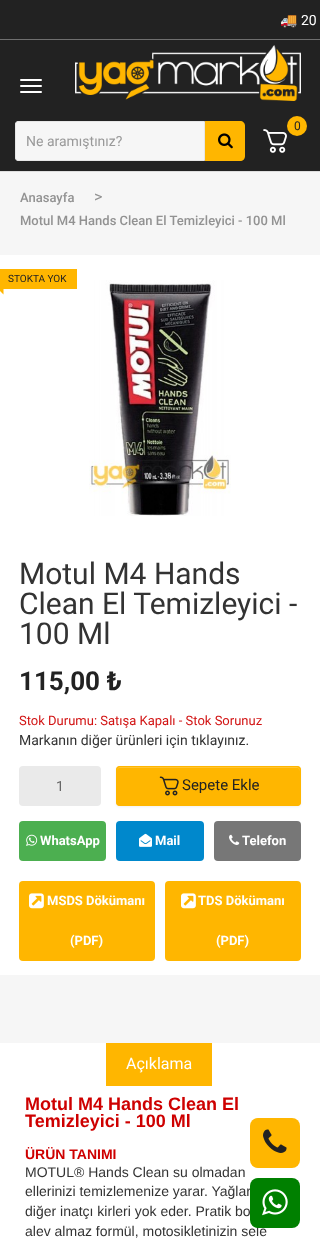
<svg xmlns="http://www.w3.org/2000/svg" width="320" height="1248">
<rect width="100%" height="100%" fill="#f6f6f6"/>
<rect width="320" height="39" fill="#222"/>
<rect y="39" width="320" height="1" fill="#6f6f6f"/>
<text x="280" y="25" style="font-family:Noto Color Emoji;font-size:14px;fill:#fff">🚚</text>
<text x="301" y="25" style="font-family:Roboto;font-size:14px;fill:#fff">20</text>
<rect y="171" width="320" height="1" fill="#dedede"/>
<rect y="40" width="320" height="131" fill="#222"/>
<rect x="20" y="79" width="22" height="2" rx="1" fill="#fff"/>
<rect x="20" y="85" width="22" height="2" rx="1" fill="#fff"/>
<rect x="20" y="91" width="22" height="2" rx="1" fill="#fff"/>
<image x="75" y="45" width="226" height="56" href="media/1.png"/>
<circle cx="297" cy="126" r="10" fill="#ffb600"/>
<text x="294" y="130" style="font-family:Roboto;font-size:12px;fill:#222">0</text>
<image x="263" y="129" width="24" height="24" href="media/2.png"/>
<path d="M18 121.5h186.5v39h-186.5c-1.5 0-2.5-1-2.5-2.5v-34c0-1.5 1-2.5 2.5-2.5z" fill="#f6f6f6" stroke="#e6e6e6"/>
<text x="26" y="146" style="font-family:Roboto;font-size:14px;fill:#999">Ne aramıştınız?</text>
<path d="M205 121h35c3 0 5 2 5 5v30c0 3-2 5-5 5h-35z" fill="#ffb600"/>
<image x="218" y="133" width="15" height="16" href="media/3.png"/>
<text x="20" y="202" style="font-family:Roboto;font-size:13px;font-weight:500;fill:#929292">Anasayfa</text>
<text x="94" y="202" style="font-family:Roboto;font-size:16px;fill:#929292">&gt;</text>
<text x="20" y="225" style="font-family:Roboto;font-size:13px;font-weight:500;fill:#929292">Motul M4 Hands Clean El Temizleyici - 100 Ml</text>
<rect y="255" width="320" height="720" fill="#fff"/>
<rect y="269" width="77" height="20" fill="#ffb600"/>
<text x="8" y="282" style="font-family:Roboto;font-size:10px;fill:#222">STOKTA YOK</text>
<path d="M3.5 294.5l-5.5-5.5h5.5z" fill="#ffb600"/>
<image x="89" y="280" width="142" height="236" href="media/4.png"/>
<text x="19" y="584" style="font-family:Roboto;font-size:30px;fill:#333">Motul M4 Hands</text>
<text x="19" y="614" style="font-family:Roboto;font-size:30px;fill:#333">Clean El Temizleyici -</text>
<text x="19" y="644" style="font-family:Roboto;font-size:30px;fill:#333">100 Ml</text>
<text x="19" y="690" style="font-family:Roboto;font-size:26px;font-weight:bold;fill:#222">115,00 ₺</text>
<text x="19" y="725" style="font-family:Roboto;font-size:13px;fill:#d21313">Stok Durumu: Satışa Kapalı - Stok Sorunuz</text>
<text x="19" y="745" style="font-family:Roboto;font-size:14px;fill:#333">Markanın diğer ürünleri için tıklayınız.</text>
<rect x="19" y="766" width="82" height="40" rx="4" fill="#eaeaea"/>
<text x="56" y="791" style="font-family:Roboto;font-size:14px;fill:#666">1</text>
<rect x="116" y="767" width="185" height="40" rx="4" fill="#0000000d" filter="blur(1px)"/>
<rect x="116" y="766" width="185" height="40" rx="4" fill="#ffb600"/>
<path d="M120 768h178l1 1l1 2c0-2-1-4-3-4h-178c-2 1-2 2-2 4c0-2 1-3 3-3z" fill="#ffc533"/>
<rect x="116.5" y="766.5" width="184" height="39" rx="3.5" fill="none" stroke="#ffb600"/>
<image x="159" y="776" width="20" height="20" href="media/5.png"/>
<text x="182" y="790" style="font-family:Roboto;font-size:15px;fill:#222">Sepete Ekle</text>
<rect x="19" y="821" width="87" height="40" rx="4" fill="#4caf50"/>
<image x="26" y="834" width="12" height="12" href="media/6.png"/>
<text x="40" y="845" style="font-family:Roboto;font-size:13px;font-weight:bold;fill:#fff">WhatsApp</text>
<rect x="116" y="821" width="88" height="40" rx="4" fill="#08c"/>
<image x="139" y="833" width="13" height="14" href="media/7.png"/>
<text x="155" y="845" style="font-family:Roboto;font-size:13px;font-weight:bold;fill:#fff">Mail</text>
<rect x="214" y="821" width="87" height="40" rx="4" fill="#777"/>
<image x="229" y="834" width="11" height="11" href="media/8.png"/>
<text x="242" y="845" style="font-family:Roboto;font-size:13px;font-weight:bold;fill:#fff">Telefon</text>
<rect x="19" y="881" width="136" height="80" rx="4" fill="#ffb600"/>
<image x="29" y="893" width="15" height="16" href="media/9.png"/>
<text x="47" y="905" style="font-family:Roboto;font-size:13px;font-weight:bold;fill:#fff">MSDS Dökümanı</text>
<text x="70" y="945" style="font-family:Roboto;font-size:13px;font-weight:bold;fill:#fff">(PDF)</text>
<rect x="165" y="881" width="136" height="80" rx="4" fill="#ffb600"/>
<image x="181" y="893" width="15" height="16" href="media/9.png"/>
<text x="198" y="905" style="font-family:Roboto;font-size:13px;font-weight:bold;fill:#fff">TDS Dökümanı</text>
<text x="216" y="945" style="font-family:Roboto;font-size:13px;font-weight:bold;fill:#fff">(PDF)</text>
<rect y="1043" width="320" height="205" fill="#fff"/>
<rect x="106" y="1043" width="106" height="43" fill="#ffb600"/>
<text x="126" y="1069" style="font-family:Roboto;font-size:16px;fill:#fff">Açıklama</text>
<text x="25" y="1110" style="font-family:Liberation Sans;font-size:18px;font-weight:bold;fill:#ce0000">Motul M4 Hands Clean El</text>
<text x="25" y="1127" style="font-family:Liberation Sans;font-size:18px;font-weight:bold;fill:#ce0000">Temizleyici - 100 Ml</text>
<text x="25" y="1159" style="font-family:Liberation Sans;font-size:14px;font-weight:bold;fill:#ce0000">ÜRÜN TANIMI</text>
<text x="25" y="1177" style="font-family:Liberation Sans;font-size:14px;fill:#333">MOTUL® Hands Clean su olmadan</text>
<text x="25" y="1196" style="font-family:Liberation Sans;font-size:14px;fill:#333">ellerinizi temizlemenize yarar. Yağlar</text>
<text x="25" y="1216" style="font-family:Liberation Sans;font-size:14px;fill:#333">diğer inatçı kirleri yok eder. Pratik bo</text>
<text x="25" y="1236" style="font-family:Liberation Sans;font-size:14px;fill:#333">alev almaz formül, motosikletinizin sele</text>
<rect x="250" y="1118" width="50" height="50" rx="8" fill="#ffb600"/>
<image x="263" y="1129" width="24" height="24" href="media/10.png"/>
<rect x="250" y="1178" width="50" height="50" rx="8" fill="#008000"/>
<image x="262" y="1189" width="26" height="27" href="media/11.png"/>
</svg>
